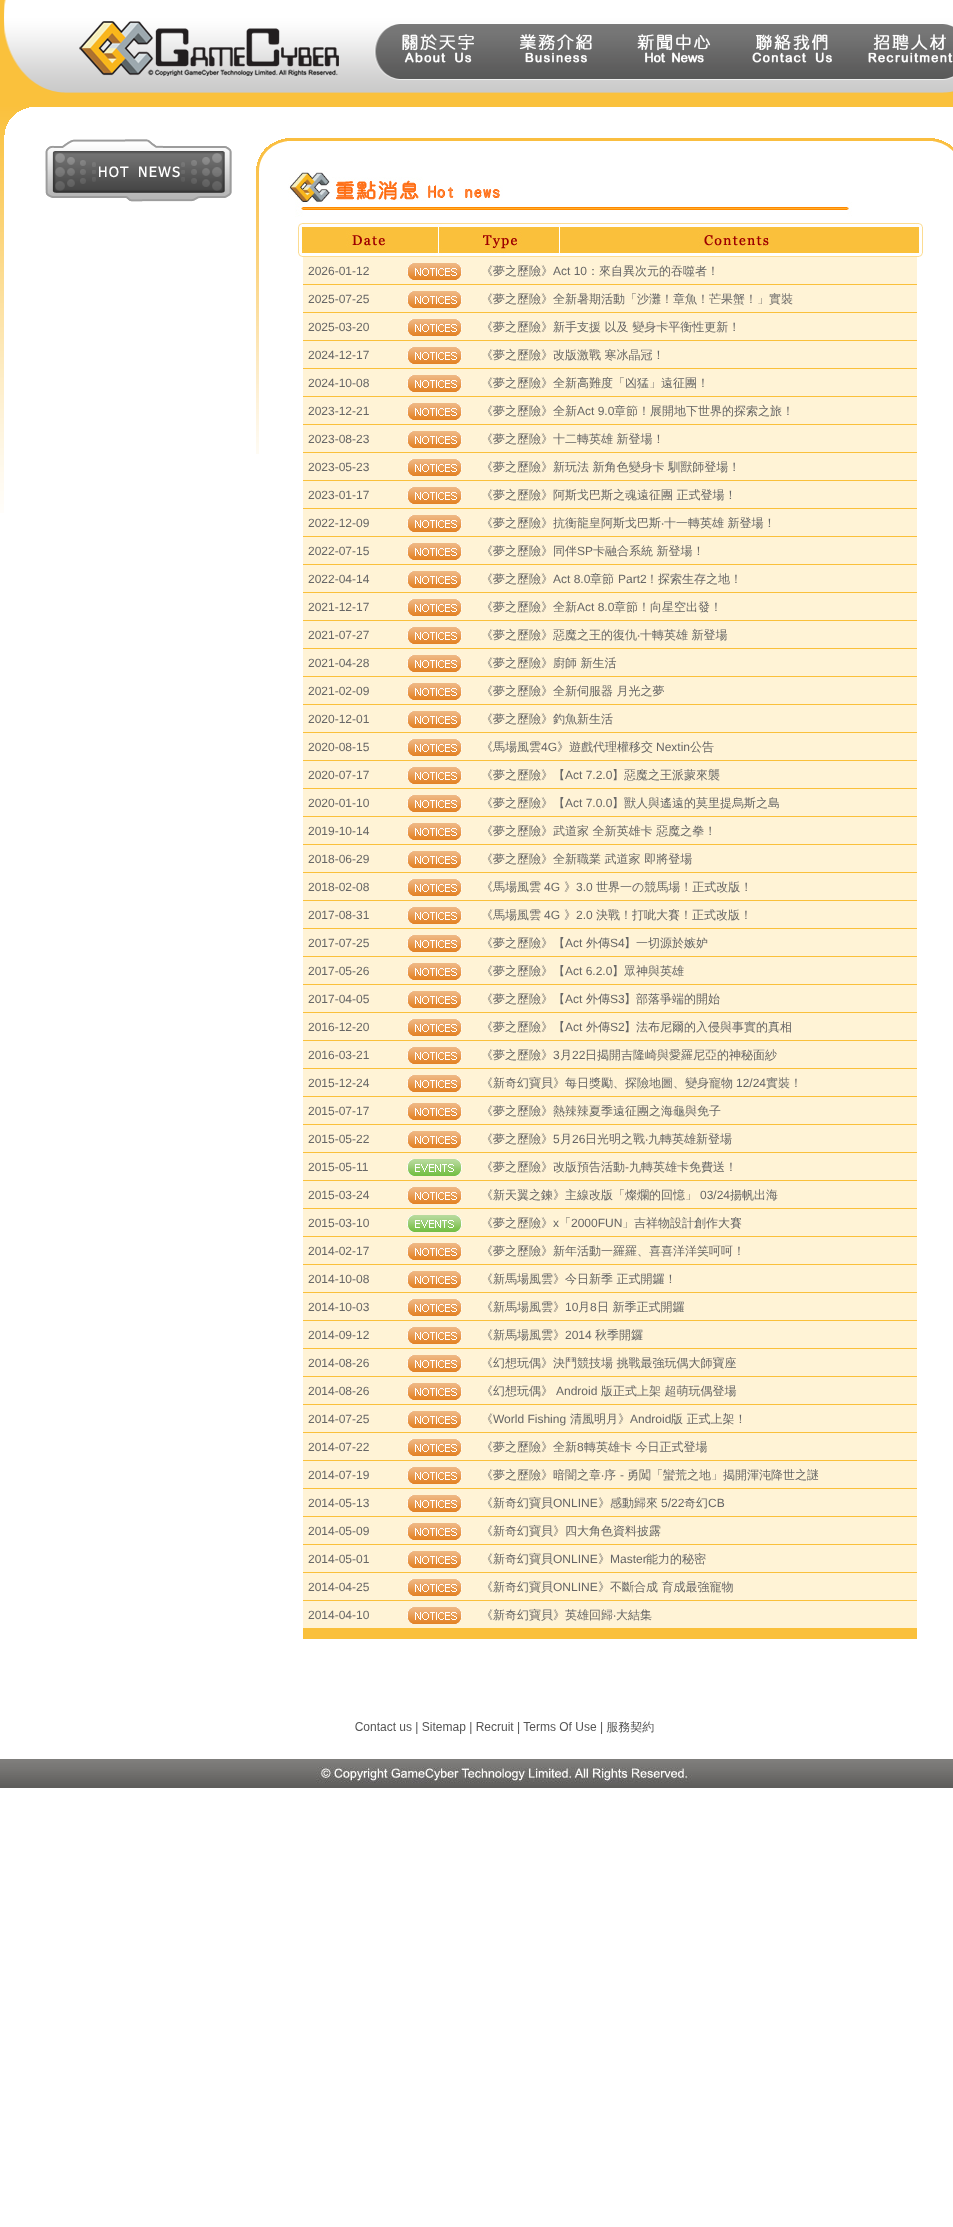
<svg xmlns="http://www.w3.org/2000/svg" width="953" height="2227">
<rect width="100%" height="100%" fill="#fff"/>
<rect width="953" height="107" fill="#fac13c"/>
<image x="4" y="0" width="949" height="93" href="media/1.png"/>
<image x="79" y="21" width="874" height="55" href="media/2.png"/>
<image x="0" y="107" width="4" height="406" href="media/3.png"/>
<image x="4" y="107" width="25" height="28" href="media/4.png"/>
<image x="4" y="107" width="31" height="31" href="media/5.png"/>
<image x="45" y="139" width="187" height="63" href="media/6.png"/>
<image x="256" y="138" width="31" height="31" href="media/7.png"/>
<rect x="287" y="138" width="646" height="3" fill="#fabe40"/>
<image x="933" y="138" width="20" height="13" href="media/8.png"/>
<image x="256" y="169" width="4" height="285" href="media/9.png"/>
<image x="288" y="171" width="564" height="46" href="media/10.png"/>
<image x="298" y="223" width="625" height="34" href="media/11.png"/>
<rect x="303" y="257" width="614" height="27" fill="#fff3d6"/>
<rect x="303" y="284" width="614" height="1" fill="#fac03b"/>
<text x="308" y="275" style="font-family:Liberation Sans;font-size:12px;fill:#666">2026-01-12</text>
<image x="407" y="263" width="55" height="17" href="media/12.png"/>
<text x="481" y="275" style="font-family:WenQuanYi Zen Hei;font-size:12px;font-weight:500;fill:#666">《夢之歷險》</text>
<text x="553" y="275" style="font-family:Liberation Sans;font-size:12px;fill:#666">Act 10</text>
<text x="587" y="275" style="font-family:WenQuanYi Zen Hei;font-size:12px;font-weight:500;fill:#666">：來自異次元的吞噬者！</text>
<rect x="303" y="285" width="614" height="27" fill="#fff3d6"/>
<rect x="303" y="312" width="614" height="1" fill="#fac03b"/>
<text x="308" y="303" style="font-family:Liberation Sans;font-size:12px;fill:#666">2025-07-25</text>
<image x="407" y="291" width="55" height="17" href="media/12.png"/>
<text x="481" y="303" style="font-family:WenQuanYi Zen Hei;font-size:12px;font-weight:500;fill:#666">《夢之歷險》全新暑期活動「沙灘！章魚！芒果蟹！」實裝</text>
<rect x="303" y="313" width="614" height="27" fill="#fff3d6"/>
<rect x="303" y="340" width="614" height="1" fill="#fac03b"/>
<text x="308" y="331" style="font-family:Liberation Sans;font-size:12px;fill:#666">2025-03-20</text>
<image x="407" y="319" width="55" height="17" href="media/12.png"/>
<text x="481" y="331" style="font-family:WenQuanYi Zen Hei;font-size:12px;font-weight:500;fill:#666">《夢之歷險》新手支援 以及 變身卡平衡性更新！</text>
<rect x="303" y="341" width="614" height="27" fill="#fff3d6"/>
<rect x="303" y="368" width="614" height="1" fill="#fac03b"/>
<text x="308" y="359" style="font-family:Liberation Sans;font-size:12px;fill:#666">2024-12-17</text>
<image x="407" y="347" width="55" height="17" href="media/12.png"/>
<text x="481" y="359" style="font-family:WenQuanYi Zen Hei;font-size:12px;font-weight:500;fill:#666">《夢之歷險》改版激戰 寒冰晶冠！</text>
<rect x="303" y="369" width="614" height="27" fill="#fff3d6"/>
<rect x="303" y="396" width="614" height="1" fill="#fac03b"/>
<text x="308" y="387" style="font-family:Liberation Sans;font-size:12px;fill:#666">2024-10-08</text>
<image x="407" y="375" width="55" height="17" href="media/12.png"/>
<text x="481" y="387" style="font-family:WenQuanYi Zen Hei;font-size:12px;font-weight:500;fill:#666">《夢之歷險》全新高難度「凶猛」遠征團！</text>
<rect x="303" y="397" width="614" height="27" fill="#fff3d6"/>
<rect x="303" y="424" width="614" height="1" fill="#fac03b"/>
<text x="308" y="415" style="font-family:Liberation Sans;font-size:12px;fill:#666">2023-12-21</text>
<image x="407" y="403" width="55" height="17" href="media/12.png"/>
<text x="481" y="415" style="font-family:WenQuanYi Zen Hei;font-size:12px;font-weight:500;fill:#666">《夢之歷險》全新</text>
<text x="577" y="415" style="font-family:Liberation Sans;font-size:12px;fill:#666">Act 9.0</text>
<text x="614" y="415" style="font-family:WenQuanYi Zen Hei;font-size:12px;font-weight:500;fill:#666">章節！展開地下世界的探索之旅！</text>
<rect x="303" y="425" width="614" height="27" fill="#fff3d6"/>
<rect x="303" y="452" width="614" height="1" fill="#fac03b"/>
<text x="308" y="443" style="font-family:Liberation Sans;font-size:12px;fill:#666">2023-08-23</text>
<image x="407" y="431" width="55" height="17" href="media/12.png"/>
<text x="481" y="443" style="font-family:WenQuanYi Zen Hei;font-size:12px;font-weight:500;fill:#666">《夢之歷險》十二轉英雄 新登場！</text>
<rect x="303" y="453" width="614" height="27" fill="#fff3d6"/>
<rect x="303" y="480" width="614" height="1" fill="#fac03b"/>
<text x="308" y="471" style="font-family:Liberation Sans;font-size:12px;fill:#666">2023-05-23</text>
<image x="407" y="459" width="55" height="17" href="media/12.png"/>
<text x="481" y="471" style="font-family:WenQuanYi Zen Hei;font-size:12px;font-weight:500;fill:#666">《夢之歷險》新玩法 新角色變身卡 馴獸師登場！</text>
<rect x="303" y="481" width="614" height="27" fill="#fff3d6"/>
<rect x="303" y="508" width="614" height="1" fill="#fac03b"/>
<text x="308" y="499" style="font-family:Liberation Sans;font-size:12px;fill:#666">2023-01-17</text>
<image x="407" y="487" width="55" height="17" href="media/12.png"/>
<text x="481" y="499" style="font-family:WenQuanYi Zen Hei;font-size:12px;font-weight:500;fill:#666">《夢之歷險》阿斯戈巴斯之魂遠征團 正式登場！</text>
<rect x="303" y="509" width="614" height="27" fill="#fff3d6"/>
<rect x="303" y="536" width="614" height="1" fill="#fac03b"/>
<text x="308" y="527" style="font-family:Liberation Sans;font-size:12px;fill:#666">2022-12-09</text>
<image x="407" y="515" width="55" height="17" href="media/12.png"/>
<text x="481" y="527" style="font-family:WenQuanYi Zen Hei;font-size:12px;font-weight:500;fill:#666">《夢之歷險》抗衡龍皇阿斯戈巴斯</text>
<text x="661" y="527" style="font-family:Noto Sans;font-size:12px;fill:#666">‧</text>
<text x="664" y="527" style="font-family:WenQuanYi Zen Hei;font-size:12px;font-weight:500;fill:#666">十一轉英雄 新登場！</text>
<rect x="303" y="537" width="614" height="27" fill="#fff3d6"/>
<rect x="303" y="564" width="614" height="1" fill="#fac03b"/>
<text x="308" y="555" style="font-family:Liberation Sans;font-size:12px;fill:#666">2022-07-15</text>
<image x="407" y="543" width="55" height="17" href="media/12.png"/>
<text x="481" y="555" style="font-family:WenQuanYi Zen Hei;font-size:12px;font-weight:500;fill:#666">《夢之歷險》同伴</text>
<text x="577" y="555" style="font-family:Liberation Sans;font-size:12px;fill:#666">SP</text>
<text x="593" y="555" style="font-family:WenQuanYi Zen Hei;font-size:12px;font-weight:500;fill:#666">卡融合系統 新登場！</text>
<rect x="303" y="565" width="614" height="27" fill="#fff3d6"/>
<rect x="303" y="592" width="614" height="1" fill="#fac03b"/>
<text x="308" y="583" style="font-family:Liberation Sans;font-size:12px;fill:#666">2022-04-14</text>
<image x="407" y="571" width="55" height="17" href="media/12.png"/>
<text x="481" y="583" style="font-family:WenQuanYi Zen Hei;font-size:12px;font-weight:500;fill:#666">《夢之歷險》</text>
<text x="553" y="583" style="font-family:Liberation Sans;font-size:12px;fill:#666">Act 8.0</text>
<text x="590" y="583" style="font-family:WenQuanYi Zen Hei;font-size:12px;font-weight:500;fill:#666">章節</text>
<text x="618" y="583" style="font-family:Liberation Sans;font-size:12px;fill:#666">Part2</text>
<text x="646" y="583" style="font-family:WenQuanYi Zen Hei;font-size:12px;font-weight:500;fill:#666">！探索生存之地！</text>
<rect x="303" y="593" width="614" height="27" fill="#fff3d6"/>
<rect x="303" y="620" width="614" height="1" fill="#fac03b"/>
<text x="308" y="611" style="font-family:Liberation Sans;font-size:12px;fill:#666">2021-12-17</text>
<image x="407" y="599" width="55" height="17" href="media/12.png"/>
<text x="481" y="611" style="font-family:WenQuanYi Zen Hei;font-size:12px;font-weight:500;fill:#666">《夢之歷險》全新</text>
<text x="577" y="611" style="font-family:Liberation Sans;font-size:12px;fill:#666">Act 8.0</text>
<text x="614" y="611" style="font-family:WenQuanYi Zen Hei;font-size:12px;font-weight:500;fill:#666">章節！向星空出發！</text>
<rect x="303" y="621" width="614" height="27" fill="#fff3d6"/>
<rect x="303" y="648" width="614" height="1" fill="#fac03b"/>
<text x="308" y="639" style="font-family:Liberation Sans;font-size:12px;fill:#666">2021-07-27</text>
<image x="407" y="627" width="55" height="17" href="media/12.png"/>
<text x="481" y="639" style="font-family:WenQuanYi Zen Hei;font-size:12px;font-weight:500;fill:#666">《夢之歷險》惡魔之王的復仇</text>
<text x="637" y="639" style="font-family:Noto Sans;font-size:12px;fill:#666">‧</text>
<text x="640" y="639" style="font-family:WenQuanYi Zen Hei;font-size:12px;font-weight:500;fill:#666">十轉英雄 新登場</text>
<rect x="303" y="649" width="614" height="27" fill="#fff3d6"/>
<rect x="303" y="676" width="614" height="1" fill="#fac03b"/>
<text x="308" y="667" style="font-family:Liberation Sans;font-size:12px;fill:#666">2021-04-28</text>
<image x="407" y="655" width="55" height="17" href="media/12.png"/>
<text x="481" y="667" style="font-family:WenQuanYi Zen Hei;font-size:12px;font-weight:500;fill:#666">《夢之歷險》廚師 新生活</text>
<rect x="303" y="677" width="614" height="27" fill="#fff3d6"/>
<rect x="303" y="704" width="614" height="1" fill="#fac03b"/>
<text x="308" y="695" style="font-family:Liberation Sans;font-size:12px;fill:#666">2021-02-09</text>
<image x="407" y="683" width="55" height="17" href="media/12.png"/>
<text x="481" y="695" style="font-family:WenQuanYi Zen Hei;font-size:12px;font-weight:500;fill:#666">《夢之歷險》全新伺服器 月光之夢</text>
<rect x="303" y="705" width="614" height="27" fill="#fff3d6"/>
<rect x="303" y="732" width="614" height="1" fill="#fac03b"/>
<text x="308" y="723" style="font-family:Liberation Sans;font-size:12px;fill:#666">2020-12-01</text>
<image x="407" y="711" width="55" height="17" href="media/12.png"/>
<text x="481" y="723" style="font-family:WenQuanYi Zen Hei;font-size:12px;font-weight:500;fill:#666">《夢之歷險》釣魚新生活</text>
<rect x="303" y="733" width="614" height="27" fill="#fff3d6"/>
<rect x="303" y="760" width="614" height="1" fill="#fac03b"/>
<text x="308" y="751" style="font-family:Liberation Sans;font-size:12px;fill:#666">2020-08-15</text>
<image x="407" y="739" width="55" height="17" href="media/12.png"/>
<text x="481" y="751" style="font-family:WenQuanYi Zen Hei;font-size:12px;font-weight:500;fill:#666">《馬場風雲</text>
<text x="541" y="751" style="font-family:Liberation Sans;font-size:12px;fill:#666">4G</text>
<text x="557" y="751" style="font-family:WenQuanYi Zen Hei;font-size:12px;font-weight:500;fill:#666">》遊戲代理權移交</text>
<text x="656" y="751" style="font-family:Liberation Sans;font-size:12px;fill:#666">Nextin</text>
<text x="690" y="751" style="font-family:WenQuanYi Zen Hei;font-size:12px;font-weight:500;fill:#666">公告</text>
<rect x="303" y="761" width="614" height="27" fill="#fff3d6"/>
<rect x="303" y="788" width="614" height="1" fill="#fac03b"/>
<text x="308" y="779" style="font-family:Liberation Sans;font-size:12px;fill:#666">2020-07-17</text>
<image x="407" y="767" width="55" height="17" href="media/12.png"/>
<text x="481" y="779" style="font-family:WenQuanYi Zen Hei;font-size:12px;font-weight:500;fill:#666">《夢之歷險》【</text>
<text x="565" y="779" style="font-family:Liberation Sans;font-size:12px;fill:#666">Act 7.2.0</text>
<text x="612" y="779" style="font-family:WenQuanYi Zen Hei;font-size:12px;font-weight:500;fill:#666">】惡魔之王派蒙來襲</text>
<rect x="303" y="789" width="614" height="27" fill="#fff3d6"/>
<rect x="303" y="816" width="614" height="1" fill="#fac03b"/>
<text x="308" y="807" style="font-family:Liberation Sans;font-size:12px;fill:#666">2020-01-10</text>
<image x="407" y="795" width="55" height="17" href="media/12.png"/>
<text x="481" y="807" style="font-family:WenQuanYi Zen Hei;font-size:12px;font-weight:500;fill:#666">《夢之歷險》【</text>
<text x="565" y="807" style="font-family:Liberation Sans;font-size:12px;fill:#666">Act 7.0.0</text>
<text x="612" y="807" style="font-family:WenQuanYi Zen Hei;font-size:12px;font-weight:500;fill:#666">】獸人與遙遠的莫里提烏斯之島</text>
<rect x="303" y="817" width="614" height="27" fill="#fff3d6"/>
<rect x="303" y="844" width="614" height="1" fill="#fac03b"/>
<text x="308" y="835" style="font-family:Liberation Sans;font-size:12px;fill:#666">2019-10-14</text>
<image x="407" y="823" width="55" height="17" href="media/12.png"/>
<text x="481" y="835" style="font-family:WenQuanYi Zen Hei;font-size:12px;font-weight:500;fill:#666">《夢之歷險》武道家 全新英雄卡 惡魔之拳！</text>
<rect x="303" y="845" width="614" height="27" fill="#fff3d6"/>
<rect x="303" y="872" width="614" height="1" fill="#fac03b"/>
<text x="308" y="863" style="font-family:Liberation Sans;font-size:12px;fill:#666">2018-06-29</text>
<image x="407" y="851" width="55" height="17" href="media/12.png"/>
<text x="481" y="863" style="font-family:WenQuanYi Zen Hei;font-size:12px;font-weight:500;fill:#666">《夢之歷險》全新職業 武道家 即將登場</text>
<rect x="303" y="873" width="614" height="27" fill="#fff3d6"/>
<rect x="303" y="900" width="614" height="1" fill="#fac03b"/>
<text x="308" y="891" style="font-family:Liberation Sans;font-size:12px;fill:#666">2018-02-08</text>
<image x="407" y="879" width="55" height="17" href="media/12.png"/>
<text x="481" y="891" style="font-family:WenQuanYi Zen Hei;font-size:12px;font-weight:500;fill:#666">《馬場風雲</text>
<text x="544" y="891" style="font-family:Liberation Sans;font-size:12px;fill:#666">4G</text>
<text x="564" y="891" style="font-family:WenQuanYi Zen Hei;font-size:12px;font-weight:500;fill:#666">》</text>
<text x="576" y="891" style="font-family:Liberation Sans;font-size:12px;fill:#666">3.0</text>
<text x="596" y="891" style="font-family:WenQuanYi Zen Hei;font-size:12px;font-weight:500;fill:#666">世界一の競馬場！正式改版！</text>
<rect x="303" y="901" width="614" height="27" fill="#fff3d6"/>
<rect x="303" y="928" width="614" height="1" fill="#fac03b"/>
<text x="308" y="919" style="font-family:Liberation Sans;font-size:12px;fill:#666">2017-08-31</text>
<image x="407" y="907" width="55" height="17" href="media/12.png"/>
<text x="481" y="919" style="font-family:WenQuanYi Zen Hei;font-size:12px;font-weight:500;fill:#666">《馬場風雲</text>
<text x="544" y="919" style="font-family:Liberation Sans;font-size:12px;fill:#666">4G</text>
<text x="564" y="919" style="font-family:WenQuanYi Zen Hei;font-size:12px;font-weight:500;fill:#666">》</text>
<text x="576" y="919" style="font-family:Liberation Sans;font-size:12px;fill:#666">2.0</text>
<text x="596" y="919" style="font-family:WenQuanYi Zen Hei;font-size:12px;font-weight:500;fill:#666">決戰！打呲大賽！正式改版！</text>
<rect x="303" y="929" width="614" height="27" fill="#fff3d6"/>
<rect x="303" y="956" width="614" height="1" fill="#fac03b"/>
<text x="308" y="947" style="font-family:Liberation Sans;font-size:12px;fill:#666">2017-07-25</text>
<image x="407" y="935" width="55" height="17" href="media/12.png"/>
<text x="481" y="947" style="font-family:WenQuanYi Zen Hei;font-size:12px;font-weight:500;fill:#666">《夢之歷險》【</text>
<text x="565" y="947" style="font-family:Liberation Sans;font-size:12px;fill:#666">Act</text>
<text x="586" y="947" style="font-family:WenQuanYi Zen Hei;font-size:12px;font-weight:500;fill:#666">外傳</text>
<text x="610" y="947" style="font-family:Liberation Sans;font-size:12px;fill:#666">S4</text>
<text x="624" y="947" style="font-family:WenQuanYi Zen Hei;font-size:12px;font-weight:500;fill:#666">】一切源於嫉妒</text>
<rect x="303" y="957" width="614" height="27" fill="#fff3d6"/>
<rect x="303" y="984" width="614" height="1" fill="#fac03b"/>
<text x="308" y="975" style="font-family:Liberation Sans;font-size:12px;fill:#666">2017-05-26</text>
<image x="407" y="963" width="55" height="17" href="media/12.png"/>
<text x="481" y="975" style="font-family:WenQuanYi Zen Hei;font-size:12px;font-weight:500;fill:#666">《夢之歷險》【</text>
<text x="565" y="975" style="font-family:Liberation Sans;font-size:12px;fill:#666">Act 6.2.0</text>
<text x="612" y="975" style="font-family:WenQuanYi Zen Hei;font-size:12px;font-weight:500;fill:#666">】眾神與英雄</text>
<rect x="303" y="985" width="614" height="27" fill="#fff3d6"/>
<rect x="303" y="1012" width="614" height="1" fill="#fac03b"/>
<text x="308" y="1003" style="font-family:Liberation Sans;font-size:12px;fill:#666">2017-04-05</text>
<image x="407" y="991" width="55" height="17" href="media/12.png"/>
<text x="481" y="1003" style="font-family:WenQuanYi Zen Hei;font-size:12px;font-weight:500;fill:#666">《夢之歷險》【</text>
<text x="565" y="1003" style="font-family:Liberation Sans;font-size:12px;fill:#666">Act</text>
<text x="586" y="1003" style="font-family:WenQuanYi Zen Hei;font-size:12px;font-weight:500;fill:#666">外傳</text>
<text x="610" y="1003" style="font-family:Liberation Sans;font-size:12px;fill:#666">S3</text>
<text x="624" y="1003" style="font-family:WenQuanYi Zen Hei;font-size:12px;font-weight:500;fill:#666">】部落爭端的開始</text>
<rect x="303" y="1013" width="614" height="27" fill="#fff3d6"/>
<rect x="303" y="1040" width="614" height="1" fill="#fac03b"/>
<text x="308" y="1031" style="font-family:Liberation Sans;font-size:12px;fill:#666">2016-12-20</text>
<image x="407" y="1019" width="55" height="17" href="media/12.png"/>
<text x="481" y="1031" style="font-family:WenQuanYi Zen Hei;font-size:12px;font-weight:500;fill:#666">《夢之歷險》【</text>
<text x="565" y="1031" style="font-family:Liberation Sans;font-size:12px;fill:#666">Act</text>
<text x="586" y="1031" style="font-family:WenQuanYi Zen Hei;font-size:12px;font-weight:500;fill:#666">外傳</text>
<text x="610" y="1031" style="font-family:Liberation Sans;font-size:12px;fill:#666">S2</text>
<text x="624" y="1031" style="font-family:WenQuanYi Zen Hei;font-size:12px;font-weight:500;fill:#666">】法布尼爾的入侵與事實的真相</text>
<rect x="303" y="1041" width="614" height="27" fill="#fff3d6"/>
<rect x="303" y="1068" width="614" height="1" fill="#fac03b"/>
<text x="308" y="1059" style="font-family:Liberation Sans;font-size:12px;fill:#666">2016-03-21</text>
<image x="407" y="1047" width="55" height="17" href="media/12.png"/>
<text x="481" y="1059" style="font-family:WenQuanYi Zen Hei;font-size:12px;font-weight:500;fill:#666">《夢之歷險》</text>
<text x="553" y="1059" style="font-family:Liberation Sans;font-size:12px;fill:#666">3</text>
<text x="560" y="1059" style="font-family:WenQuanYi Zen Hei;font-size:12px;font-weight:500;fill:#666">月</text>
<text x="572" y="1059" style="font-family:Liberation Sans;font-size:12px;fill:#666">22</text>
<text x="585" y="1059" style="font-family:WenQuanYi Zen Hei;font-size:12px;font-weight:500;fill:#666">日揭開吉隆崎與愛羅尼亞的神秘面紗</text>
<rect x="303" y="1069" width="614" height="27" fill="#fff3d6"/>
<rect x="303" y="1096" width="614" height="1" fill="#fac03b"/>
<text x="308" y="1087" style="font-family:Liberation Sans;font-size:12px;fill:#666">2015-12-24</text>
<image x="407" y="1075" width="55" height="17" href="media/12.png"/>
<text x="481" y="1087" style="font-family:WenQuanYi Zen Hei;font-size:12px;font-weight:500;fill:#666">《新奇幻寶貝》每日獎勵、探險地圖、變身寵物</text>
<text x="736" y="1087" style="font-family:Liberation Sans;font-size:12px;fill:#666">12/24</text>
<text x="766" y="1087" style="font-family:WenQuanYi Zen Hei;font-size:12px;font-weight:500;fill:#666">實裝！</text>
<rect x="303" y="1097" width="614" height="27" fill="#fff3d6"/>
<rect x="303" y="1124" width="614" height="1" fill="#fac03b"/>
<text x="308" y="1115" style="font-family:Liberation Sans;font-size:12px;fill:#666">2015-07-17</text>
<image x="407" y="1103" width="55" height="17" href="media/12.png"/>
<text x="481" y="1115" style="font-family:WenQuanYi Zen Hei;font-size:12px;font-weight:500;fill:#666">《夢之歷險》熱辣辣夏季遠征團之海龜與免子</text>
<rect x="303" y="1125" width="614" height="27" fill="#fff3d6"/>
<rect x="303" y="1152" width="614" height="1" fill="#fac03b"/>
<text x="308" y="1143" style="font-family:Liberation Sans;font-size:12px;fill:#666">2015-05-22</text>
<image x="407" y="1131" width="55" height="17" href="media/12.png"/>
<text x="481" y="1143" style="font-family:WenQuanYi Zen Hei;font-size:12px;font-weight:500;fill:#666">《夢之歷險》</text>
<text x="553" y="1143" style="font-family:Liberation Sans;font-size:12px;fill:#666">5</text>
<text x="560" y="1143" style="font-family:WenQuanYi Zen Hei;font-size:12px;font-weight:500;fill:#666">月</text>
<text x="572" y="1143" style="font-family:Liberation Sans;font-size:12px;fill:#666">26</text>
<text x="585" y="1143" style="font-family:WenQuanYi Zen Hei;font-size:12px;font-weight:500;fill:#666">日光明之戰</text>
<text x="645" y="1143" style="font-family:Noto Sans;font-size:12px;fill:#666">‧</text>
<text x="648" y="1143" style="font-family:WenQuanYi Zen Hei;font-size:12px;font-weight:500;fill:#666">九轉英雄新登場</text>
<rect x="303" y="1153" width="614" height="27" fill="#fff3d6"/>
<rect x="303" y="1180" width="614" height="1" fill="#fac03b"/>
<text x="308" y="1171" style="font-family:Liberation Sans;font-size:12px;fill:#666">2015-05-11</text>
<image x="407" y="1159" width="55" height="17" href="media/13.png"/>
<text x="481" y="1171" style="font-family:WenQuanYi Zen Hei;font-size:12px;font-weight:500;fill:#666">《夢之歷險》改版預告活動</text>
<text x="625" y="1171" style="font-family:Liberation Sans;font-size:12px;fill:#666">-</text>
<text x="629" y="1171" style="font-family:WenQuanYi Zen Hei;font-size:12px;font-weight:500;fill:#666">九轉英雄卡免費送！</text>
<rect x="303" y="1181" width="614" height="27" fill="#fff3d6"/>
<rect x="303" y="1208" width="614" height="1" fill="#fac03b"/>
<text x="308" y="1199" style="font-family:Liberation Sans;font-size:12px;fill:#666">2015-03-24</text>
<image x="407" y="1187" width="55" height="17" href="media/12.png"/>
<text x="481" y="1199" style="font-family:WenQuanYi Zen Hei;font-size:12px;font-weight:500;fill:#666">《新天翼之鍊》主線改版「燦爛的回憶」</text>
<text x="700" y="1199" style="font-family:Liberation Sans;font-size:12px;fill:#666">03/24</text>
<text x="730" y="1199" style="font-family:WenQuanYi Zen Hei;font-size:12px;font-weight:500;fill:#666">揚帆出海</text>
<rect x="303" y="1209" width="614" height="27" fill="#fff3d6"/>
<rect x="303" y="1236" width="614" height="1" fill="#fac03b"/>
<text x="308" y="1227" style="font-family:Liberation Sans;font-size:12px;fill:#666">2015-03-10</text>
<image x="407" y="1215" width="55" height="17" href="media/13.png"/>
<text x="481" y="1227" style="font-family:WenQuanYi Zen Hei;font-size:12px;font-weight:500;fill:#666">《夢之歷險》</text>
<text x="553" y="1227" style="font-family:Liberation Sans;font-size:12px;fill:#666">x</text>
<text x="559" y="1227" style="font-family:WenQuanYi Zen Hei;font-size:12px;font-weight:500;fill:#666">「</text>
<text x="571" y="1227" style="font-family:Liberation Sans;font-size:12px;fill:#666">2000FUN</text>
<text x="622" y="1227" style="font-family:WenQuanYi Zen Hei;font-size:12px;font-weight:500;fill:#666">」吉祥物設計創作大賽</text>
<rect x="303" y="1237" width="614" height="27" fill="#fff3d6"/>
<rect x="303" y="1264" width="614" height="1" fill="#fac03b"/>
<text x="308" y="1255" style="font-family:Liberation Sans;font-size:12px;fill:#666">2014-02-17</text>
<image x="407" y="1243" width="55" height="17" href="media/12.png"/>
<text x="481" y="1255" style="font-family:WenQuanYi Zen Hei;font-size:12px;font-weight:500;fill:#666">《夢之歷險》新年活動一羅羅、喜喜洋洋笑呵呵！</text>
<rect x="303" y="1265" width="614" height="27" fill="#fff3d6"/>
<rect x="303" y="1292" width="614" height="1" fill="#fac03b"/>
<text x="308" y="1283" style="font-family:Liberation Sans;font-size:12px;fill:#666">2014-10-08</text>
<image x="407" y="1271" width="55" height="17" href="media/12.png"/>
<text x="481" y="1283" style="font-family:WenQuanYi Zen Hei;font-size:12px;font-weight:500;fill:#666">《新馬場風雲》今日新季 正式開鑼！</text>
<rect x="303" y="1293" width="614" height="27" fill="#fff3d6"/>
<rect x="303" y="1320" width="614" height="1" fill="#fac03b"/>
<text x="308" y="1311" style="font-family:Liberation Sans;font-size:12px;fill:#666">2014-10-03</text>
<image x="407" y="1299" width="55" height="17" href="media/12.png"/>
<text x="481" y="1311" style="font-family:WenQuanYi Zen Hei;font-size:12px;font-weight:500;fill:#666">《新馬場風雲》</text>
<text x="565" y="1311" style="font-family:Liberation Sans;font-size:12px;fill:#666">10</text>
<text x="578" y="1311" style="font-family:WenQuanYi Zen Hei;font-size:12px;font-weight:500;fill:#666">月</text>
<text x="590" y="1311" style="font-family:Liberation Sans;font-size:12px;fill:#666">8</text>
<text x="597" y="1311" style="font-family:WenQuanYi Zen Hei;font-size:12px;font-weight:500;fill:#666">日 新季正式開鑼</text>
<rect x="303" y="1321" width="614" height="27" fill="#fff3d6"/>
<rect x="303" y="1348" width="614" height="1" fill="#fac03b"/>
<text x="308" y="1339" style="font-family:Liberation Sans;font-size:12px;fill:#666">2014-09-12</text>
<image x="407" y="1327" width="55" height="17" href="media/12.png"/>
<text x="481" y="1339" style="font-family:WenQuanYi Zen Hei;font-size:12px;font-weight:500;fill:#666">《新馬場風雲》</text>
<text x="565" y="1339" style="font-family:Liberation Sans;font-size:12px;fill:#666">2014</text>
<text x="595" y="1339" style="font-family:WenQuanYi Zen Hei;font-size:12px;font-weight:500;fill:#666">秋季開鑼</text>
<rect x="303" y="1349" width="614" height="27" fill="#fff3d6"/>
<rect x="303" y="1376" width="614" height="1" fill="#fac03b"/>
<text x="308" y="1367" style="font-family:Liberation Sans;font-size:12px;fill:#666">2014-08-26</text>
<image x="407" y="1355" width="55" height="17" href="media/12.png"/>
<text x="481" y="1367" style="font-family:WenQuanYi Zen Hei;font-size:12px;font-weight:500;fill:#666">《幻想玩偶》決鬥競技場 挑戰最強玩偶大師寶座</text>
<rect x="303" y="1377" width="614" height="27" fill="#fff3d6"/>
<rect x="303" y="1404" width="614" height="1" fill="#fac03b"/>
<text x="308" y="1395" style="font-family:Liberation Sans;font-size:12px;fill:#666">2014-08-26</text>
<image x="407" y="1383" width="55" height="17" href="media/12.png"/>
<text x="481" y="1395" style="font-family:WenQuanYi Zen Hei;font-size:12px;font-weight:500;fill:#666">《幻想玩偶》</text>
<text x="556" y="1395" style="font-family:Liberation Sans;font-size:12px;fill:#666">Android</text>
<text x="601" y="1395" style="font-family:WenQuanYi Zen Hei;font-size:12px;font-weight:500;fill:#666">版正式上架 超萌玩偶登場</text>
<rect x="303" y="1405" width="614" height="27" fill="#fff3d6"/>
<rect x="303" y="1432" width="614" height="1" fill="#fac03b"/>
<text x="308" y="1423" style="font-family:Liberation Sans;font-size:12px;fill:#666">2014-07-25</text>
<image x="407" y="1411" width="55" height="17" href="media/12.png"/>
<text x="481" y="1423" style="font-family:WenQuanYi Zen Hei;font-size:12px;font-weight:500;fill:#666">《</text>
<text x="493" y="1423" style="font-family:Liberation Sans;font-size:12px;fill:#666">World Fishing</text>
<text x="570" y="1423" style="font-family:WenQuanYi Zen Hei;font-size:12px;font-weight:500;fill:#666">清風明月》</text>
<text x="630" y="1423" style="font-family:Liberation Sans;font-size:12px;fill:#666">Android</text>
<text x="671" y="1423" style="font-family:WenQuanYi Zen Hei;font-size:12px;font-weight:500;fill:#666">版 正式上架！</text>
<rect x="303" y="1433" width="614" height="27" fill="#fff3d6"/>
<rect x="303" y="1460" width="614" height="1" fill="#fac03b"/>
<text x="308" y="1451" style="font-family:Liberation Sans;font-size:12px;fill:#666">2014-07-22</text>
<image x="407" y="1439" width="55" height="17" href="media/12.png"/>
<text x="481" y="1451" style="font-family:WenQuanYi Zen Hei;font-size:12px;font-weight:500;fill:#666">《夢之歷險》全新</text>
<text x="577" y="1451" style="font-family:Liberation Sans;font-size:12px;fill:#666">8</text>
<text x="584" y="1451" style="font-family:WenQuanYi Zen Hei;font-size:12px;font-weight:500;fill:#666">轉英雄卡 今日正式登場</text>
<rect x="303" y="1461" width="614" height="27" fill="#fff3d6"/>
<rect x="303" y="1488" width="614" height="1" fill="#fac03b"/>
<text x="308" y="1479" style="font-family:Liberation Sans;font-size:12px;fill:#666">2014-07-19</text>
<image x="407" y="1467" width="55" height="17" href="media/12.png"/>
<text x="481" y="1479" style="font-family:WenQuanYi Zen Hei;font-size:12px;font-weight:500;fill:#666">《夢之歷險》暗闇之章</text>
<text x="601" y="1479" style="font-family:Noto Sans;font-size:12px;fill:#666">‧</text>
<text x="604" y="1479" style="font-family:WenQuanYi Zen Hei;font-size:12px;font-weight:500;fill:#666">序</text>
<text x="620" y="1479" style="font-family:Liberation Sans;font-size:12px;fill:#666">-</text>
<text x="627" y="1479" style="font-family:WenQuanYi Zen Hei;font-size:12px;font-weight:500;fill:#666">勇闖「蠻荒之地」揭開渾沌降世之謎</text>
<rect x="303" y="1489" width="614" height="27" fill="#fff3d6"/>
<rect x="303" y="1516" width="614" height="1" fill="#fac03b"/>
<text x="308" y="1507" style="font-family:Liberation Sans;font-size:12px;fill:#666">2014-05-13</text>
<image x="407" y="1495" width="55" height="17" href="media/12.png"/>
<text x="481" y="1507" style="font-family:WenQuanYi Zen Hei;font-size:12px;font-weight:500;fill:#666">《新奇幻寶貝</text>
<text x="553" y="1507" style="font-family:Liberation Sans;font-size:12px;fill:#666">ONLINE</text>
<text x="598" y="1507" style="font-family:WenQuanYi Zen Hei;font-size:12px;font-weight:500;fill:#666">》感動歸來</text>
<text x="661" y="1507" style="font-family:Liberation Sans;font-size:12px;fill:#666">5/22</text>
<text x="684" y="1507" style="font-family:WenQuanYi Zen Hei;font-size:12px;font-weight:500;fill:#666">奇幻</text>
<text x="708" y="1507" style="font-family:Liberation Sans;font-size:12px;fill:#666">CB</text>
<rect x="303" y="1517" width="614" height="27" fill="#fff3d6"/>
<rect x="303" y="1544" width="614" height="1" fill="#fac03b"/>
<text x="308" y="1535" style="font-family:Liberation Sans;font-size:12px;fill:#666">2014-05-09</text>
<image x="407" y="1523" width="55" height="17" href="media/12.png"/>
<text x="481" y="1535" style="font-family:WenQuanYi Zen Hei;font-size:12px;font-weight:500;fill:#666">《新奇幻寶貝》四大角色資料披露</text>
<rect x="303" y="1545" width="614" height="27" fill="#fff3d6"/>
<rect x="303" y="1572" width="614" height="1" fill="#fac03b"/>
<text x="308" y="1563" style="font-family:Liberation Sans;font-size:12px;fill:#666">2014-05-01</text>
<image x="407" y="1551" width="55" height="17" href="media/12.png"/>
<text x="481" y="1563" style="font-family:WenQuanYi Zen Hei;font-size:12px;font-weight:500;fill:#666">《新奇幻寶貝</text>
<text x="553" y="1563" style="font-family:Liberation Sans;font-size:12px;fill:#666">ONLINE</text>
<text x="598" y="1563" style="font-family:WenQuanYi Zen Hei;font-size:12px;font-weight:500;fill:#666">》</text>
<text x="610" y="1563" style="font-family:Liberation Sans;font-size:12px;fill:#666">Master</text>
<text x="646" y="1563" style="font-family:WenQuanYi Zen Hei;font-size:12px;font-weight:500;fill:#666">能力的秘密</text>
<rect x="303" y="1573" width="614" height="27" fill="#fff3d6"/>
<rect x="303" y="1600" width="614" height="1" fill="#fac03b"/>
<text x="308" y="1591" style="font-family:Liberation Sans;font-size:12px;fill:#666">2014-04-25</text>
<image x="407" y="1579" width="55" height="17" href="media/12.png"/>
<text x="481" y="1591" style="font-family:WenQuanYi Zen Hei;font-size:12px;font-weight:500;fill:#666">《新奇幻寶貝</text>
<text x="553" y="1591" style="font-family:Liberation Sans;font-size:12px;fill:#666">ONLINE</text>
<text x="598" y="1591" style="font-family:WenQuanYi Zen Hei;font-size:12px;font-weight:500;fill:#666">》不斷合成 育成最強寵物</text>
<rect x="303" y="1601" width="614" height="27" fill="#fff3d6"/>
<rect x="303" y="1628" width="614" height="11" fill="#fac03b"/>
<text x="308" y="1619" style="font-family:Liberation Sans;font-size:12px;fill:#666">2014-04-10</text>
<image x="407" y="1607" width="55" height="17" href="media/12.png"/>
<text x="481" y="1619" style="font-family:WenQuanYi Zen Hei;font-size:12px;font-weight:500;fill:#666">《新奇幻寶貝》英雄回歸</text>
<text x="613" y="1619" style="font-family:Noto Sans;font-size:12px;fill:#666">‧</text>
<text x="616" y="1619" style="font-family:WenQuanYi Zen Hei;font-size:12px;font-weight:500;fill:#666">大結集</text>
<image x="355" y="1721" width="299" height="13" href="media/14.png"/>
<image x="0" y="1759" width="953" height="29" href="media/15.png"/>
<image x="316" y="1767" width="376" height="16" href="media/16.png"/>
</svg>
